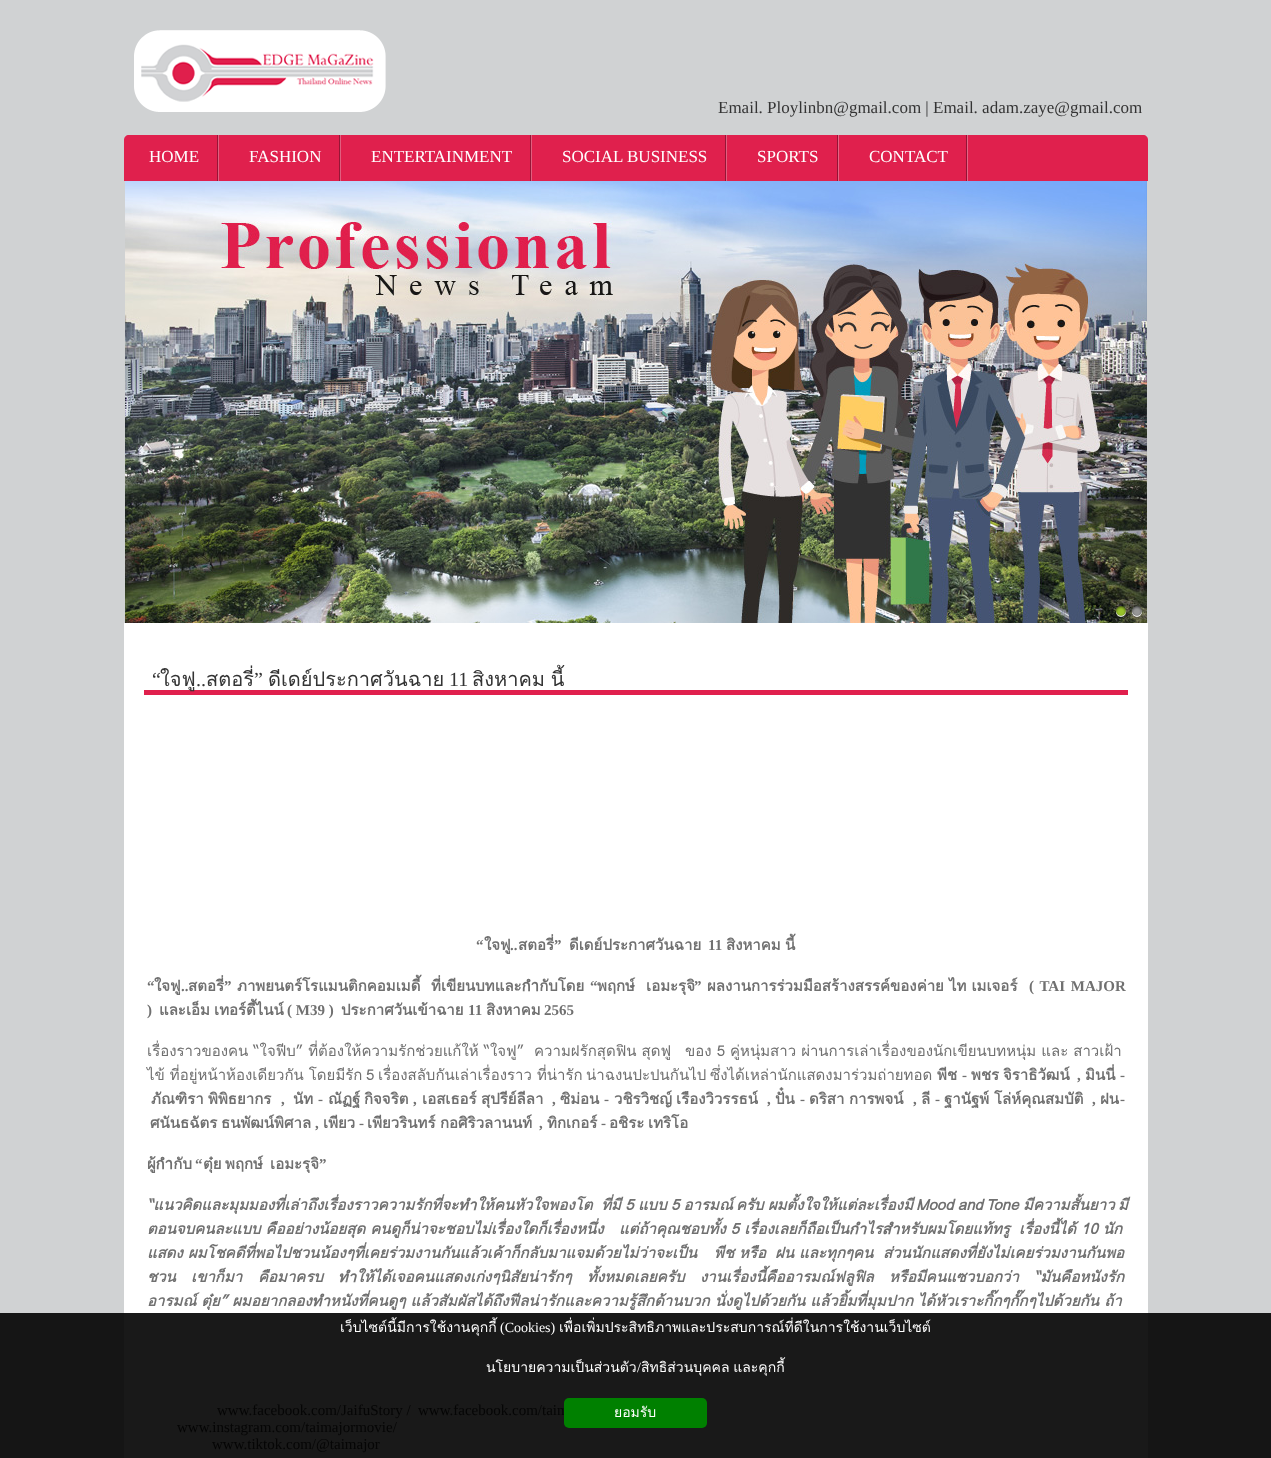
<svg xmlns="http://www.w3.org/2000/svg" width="1271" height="1458">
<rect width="100%" height="100%" fill="#d0d2d3"/>
<rect y="1313" width="1271" height="145" fill="#151515"/>
<image x="134" y="30" width="252" height="82" href="media/1.png"/>
<text x="718" y="113" style="font-family:Liberation Serif;font-size:17px;fill:#343434">Email. Ploylinbn@gmail.com | Email. adam.zaye@gmail.com</text>
<path d="M129 135h1014c3 0 5 2 5 5v41h-1024v-41c0-3 2-5 5-5z" fill="#e0204d"/>
<image x="217" y="135" width="2" height="46" href="media/2.png"/>
<text x="149" y="162" style="font-family:Liberation Serif;font-size:17px;fill:#fff">HOME</text>
<image x="339" y="135" width="2" height="46" href="media/2.png"/>
<text x="249" y="162" style="font-family:Liberation Serif;font-size:17px;fill:#fff">FASHION</text>
<image x="530" y="135" width="2" height="46" href="media/2.png"/>
<text x="371" y="162" style="font-family:Liberation Serif;font-size:17px;fill:#fff">ENTERTAINMENT</text>
<image x="725" y="135" width="2" height="46" href="media/2.png"/>
<text x="562" y="162" style="font-family:Liberation Serif;font-size:17px;fill:#fff">SOCIAL BUSINESS</text>
<image x="837" y="135" width="2" height="46" href="media/3.png"/>
<text x="757" y="162" style="font-family:Liberation Serif;font-size:17px;fill:#fff">SPORTS</text>
<image x="966" y="135" width="2" height="46" href="media/3.png"/>
<text x="869" y="162" style="font-family:Liberation Serif;font-size:17px;fill:#fff">CONTACT</text>
<image x="125" y="181" width="1022" height="442" href="media/4.png"/>
<image x="1116" y="606" width="10" height="11" href="media/5.png"/>
<image x="1132" y="606" width="10" height="11" href="media/6.png"/>
<rect x="124" y="623" width="1024" height="690" fill="#fff"/>
<rect x="124" y="1313" width="1024" height="145" fill="#191919"/>
<rect x="144" y="690" width="984" height="5" fill="#e0204d"/>
<text x="152" y="686" style="font-family:Liberation Serif;font-size:20px;fill:#343434">“</text>
<text x="160" y="686" style="font-family:Loma;font-size:20px;fill:#343434">ใจฟู</text>
<text x="206" y="686" style="font-family:Loma;font-size:20px;fill:#343434">สตอรี่</text>
<text x="254" y="686" style="font-family:Liberation Serif;font-size:20px;fill:#343434">”</text>
<text x="268" y="686" style="font-family:Loma;font-size:20px;fill:#343434">ดีเดย์ประกาศวันฉาย</text>
<text x="449" y="686" style="font-family:Liberation Serif;font-size:20px;fill:#343434">11</text>
<text x="472" y="686" word-spacing="-1" style="font-family:Loma;font-size:20px;fill:#343434">สิงหาคม นี้</text>
<text x="196" y="686" style="font-family:Liberation Serif;font-size:20px;fill:#343434">..</text>
<text x="476" y="950" style="font-family:Liberation Serif;font-size:15px;font-weight:bold;fill:#707070">“</text>
<text x="484" y="950" style="font-family:Loma;font-size:15px;font-weight:bold;fill:#707070">ใจฟู</text>
<text x="510" y="950" style="font-family:Liberation Serif;font-size:15px;font-weight:bold;fill:#707070">..</text>
<text x="518" y="950" style="font-family:Loma;font-size:15px;font-weight:bold;fill:#707070">สตอรี่</text>
<text x="554" y="950" style="font-family:Liberation Serif;font-size:15px;font-weight:bold;fill:#707070">”</text>
<text x="569" y="950" style="font-family:Loma;font-size:15px;font-weight:bold;fill:#707070">ดีเดย์ประกาศวันฉาย</text>
<text x="708" y="950" style="font-family:Liberation Serif;font-size:15px;font-weight:bold;fill:#707070">11</text>
<text x="726" y="950" style="font-family:Loma;font-size:15px;font-weight:bold;fill:#707070">สิงหาคม</text>
<text x="785" y="950" style="font-family:Loma;font-size:15px;font-weight:bold;fill:#707070">นี้</text>
<text x="147" y="991" style="font-family:Liberation Serif;font-size:15px;font-weight:bold;fill:#707070">“</text>
<text x="154" y="991" style="font-family:Loma;font-size:15px;font-weight:bold;fill:#707070">ใจฟู</text>
<text x="188" y="991" style="font-family:Loma;font-size:15px;font-weight:bold;fill:#707070">สตอรี่</text>
<text x="224" y="991" style="font-family:Liberation Serif;font-size:15px;font-weight:bold;fill:#707070">”</text>
<text x="237" y="991" style="font-family:Loma;font-size:15px;font-weight:bold;fill:#707070">ภาพยนตร์โรแมนติกคอมเมดี้</text>
<text x="431" y="991" style="font-family:Loma;font-size:15px;font-weight:bold;fill:#707070">ที่เขียนบทและกำกับโดย</text>
<text x="590" y="991" style="font-family:Liberation Serif;font-size:15px;font-weight:bold;fill:#707070">“</text>
<text x="597" y="991" style="font-family:Loma;font-size:15px;font-weight:bold;fill:#707070">พฤกษ์</text>
<text x="646" y="991" style="font-family:Loma;font-size:15px;font-weight:bold;fill:#707070">เอมะรุจิ</text>
<text x="694" y="991" style="font-family:Liberation Serif;font-size:15px;font-weight:bold;fill:#707070">”</text>
<text x="707" y="991" style="font-family:Loma;font-size:15px;font-weight:bold;fill:#707070">ผลงานการร่วมมือสร้างสรรค์ของค่าย ไท เมเจอร์</text>
<text x="1029" y="991" word-spacing="2" style="font-family:Liberation Serif;font-size:15px;font-weight:bold;fill:#707070">( TAI MAJOR</text>
<text x="181" y="991" style="font-family:Liberation Serif;font-size:15px;font-weight:bold;fill:#707070">..</text>
<text x="147" y="1015" style="font-family:Liberation Serif;font-size:15px;font-weight:bold;fill:#707070">)</text>
<text x="159" y="1015" style="font-family:Loma;font-size:15px;font-weight:bold;fill:#707070">และเอ็ม</text>
<text x="214" y="1015" style="font-family:Loma;font-size:15px;font-weight:bold;fill:#707070">เทอร์ตี้ไนน์</text>
<text x="287" y="1015" style="font-family:Liberation Serif;font-size:15px;font-weight:bold;fill:#707070">( M39 )</text>
<text x="341" y="1015" style="font-family:Loma;font-size:15px;font-weight:bold;fill:#707070">ประกาศวันเข้าฉาย</text>
<text x="468" y="1015" style="font-family:Liberation Serif;font-size:15px;font-weight:bold;fill:#707070">11</text>
<text x="486" y="1015" style="font-family:Loma;font-size:15px;font-weight:bold;fill:#707070">สิงหาคม</text>
<text x="544" y="1015" style="font-family:Liberation Serif;font-size:15px;font-weight:bold;fill:#707070">2565</text>
<text x="147" y="1056" style="font-family:Loma;font-size:15px;fill:#707070" xml:space="preserve">เรื่องราวของคน “ใจฟีบ” ที่ต้องให้ความรักช่วยแก้ให้ “ใจฟู”  ความฝรักสุดฟิน สุดฟู</text>
<text x="685" y="1056" style="font-family:Loma;font-size:15px;fill:#707070">ของ 5 คู่หนุ่มสาว ผ่านการเล่าเรื่องของนักเขียนบทหนุ่ม และ สาวเฝ้า</text>
<text x="147" y="1080" style="font-family:Loma;font-size:15px;fill:#707070">ไข้ ที่อยู่หน้าห้องเดียวกัน โดยมีรัก</text>
<text x="366" y="1080" style="font-family:Loma;font-size:15px;fill:#707070">5</text>
<text x="378" y="1080" style="font-family:Loma;font-size:15px;fill:#707070">เรื่องสลับกันเล่าเรื่องราว ที่น่ารัก</text>
<text x="586" y="1080" style="font-family:Loma;font-size:15px;fill:#707070">น่าฉงนปะปนกันไป</text>
<text x="710" y="1080" style="font-family:Loma;font-size:15px;fill:#707070">ซึ่งได้เหล่านักแสดงมาร่วมถ่ายทอด</text>
<text x="937" y="1080" style="font-family:Loma;font-size:15px;font-weight:bold;fill:#707070">พีช</text>
<text x="962" y="1080" style="font-family:Liberation Serif;font-size:15px;font-weight:bold;fill:#707070">-</text>
<text x="971" y="1080" style="font-family:Loma;font-size:15px;font-weight:bold;fill:#707070">พชร</text>
<text x="1003" y="1080" style="font-family:Loma;font-size:15px;font-weight:bold;fill:#707070">จิราธิวัฒน์</text>
<text x="1077" y="1080" style="font-family:Liberation Serif;font-size:15px;font-weight:bold;fill:#707070">,</text>
<text x="1085" y="1080" style="font-family:Loma;font-size:15px;font-weight:bold;fill:#707070">มินนี่</text>
<text x="1120" y="1080" style="font-family:Liberation Serif;font-size:15px;font-weight:bold;fill:#707070">-</text>
<text x="151" y="1104" style="font-family:Loma;font-size:15px;font-weight:bold;fill:#707070">ภัณฑิรา</text>
<text x="208" y="1104" style="font-family:Loma;font-size:15px;font-weight:bold;fill:#707070">พิพิธยากร</text>
<text x="293" y="1104" style="font-family:Loma;font-size:15px;font-weight:bold;fill:#707070">นัท</text>
<text x="318" y="1104" style="font-family:Liberation Serif;font-size:15px;font-weight:bold;fill:#707070">-</text>
<text x="328" y="1104" style="font-family:Loma;font-size:15px;font-weight:bold;fill:#707070">ณัฏฐ์</text>
<text x="364" y="1104" style="font-family:Loma;font-size:15px;font-weight:bold;fill:#707070">กิจจริต</text>
<text x="422" y="1104" style="font-family:Loma;font-size:15px;font-weight:bold;fill:#707070">เอสเธอร์</text>
<text x="481" y="1104" style="font-family:Loma;font-size:15px;font-weight:bold;fill:#707070">สุปรีย์ลีลา</text>
<text x="552" y="1104" style="font-family:Liberation Serif;font-size:15px;font-weight:bold;fill:#707070">,</text>
<text x="560" y="1104" style="font-family:Loma;font-size:15px;font-weight:bold;fill:#707070">ซิม่อน</text>
<text x="604" y="1104" style="font-family:Liberation Serif;font-size:15px;font-weight:bold;fill:#707070">-</text>
<text x="614" y="1104" style="font-family:Loma;font-size:15px;font-weight:bold;fill:#707070">วชิรวิชญ์</text>
<text x="676" y="1104" style="font-family:Loma;font-size:15px;font-weight:bold;fill:#707070">เรืองวิวรรธน์</text>
<text x="767" y="1104" style="font-family:Liberation Serif;font-size:15px;font-weight:bold;fill:#707070">,</text>
<text x="775" y="1104" style="font-family:Loma;font-size:15px;font-weight:bold;fill:#707070">ปั๋น</text>
<text x="800" y="1104" style="font-family:Liberation Serif;font-size:15px;font-weight:bold;fill:#707070">-</text>
<text x="809" y="1104" style="font-family:Loma;font-size:15px;font-weight:bold;fill:#707070">ดริสา</text>
<text x="849" y="1104" style="font-family:Loma;font-size:15px;font-weight:bold;fill:#707070">การพจน์</text>
<text x="913" y="1104" style="font-family:Liberation Serif;font-size:15px;font-weight:bold;fill:#707070">,</text>
<text x="921" y="1104" style="font-family:Loma;font-size:15px;font-weight:bold;fill:#707070">ลี</text>
<text x="935" y="1104" style="font-family:Liberation Serif;font-size:15px;font-weight:bold;fill:#707070">-</text>
<text x="944" y="1104" style="font-family:Loma;font-size:15px;font-weight:bold;fill:#707070">ฐานัฐพ์</text>
<text x="994" y="1104" style="font-family:Loma;font-size:15px;font-weight:bold;fill:#707070">โล่ห์คุณสมบัติ</text>
<text x="1100" y="1104" style="font-family:Loma;font-size:15px;font-weight:bold;fill:#707070">ฝน</text>
<text x="1120" y="1104" style="font-family:Liberation Serif;font-size:15px;font-weight:bold;fill:#707070">-</text>
<text x="281" y="1104" style="font-family:Liberation Serif;font-size:15px;font-weight:bold;fill:#707070">,</text>
<text x="413" y="1104" style="font-family:Liberation Serif;font-size:15px;font-weight:bold;fill:#707070">,</text>
<text x="1092" y="1104" style="font-family:Liberation Serif;font-size:15px;font-weight:bold;fill:#707070">,</text>
<text x="150" y="1128" style="font-family:Loma;font-size:15px;font-weight:bold;fill:#707070">ศนันธฉัตร</text>
<text x="221" y="1128" style="font-family:Loma;font-size:15px;font-weight:bold;fill:#707070">ธนพัฒน์พิศาล</text>
<text x="323" y="1128" style="font-family:Loma;font-size:15px;font-weight:bold;fill:#707070">เพียว</text>
<text x="359" y="1128" style="font-family:Liberation Serif;font-size:15px;font-weight:bold;fill:#707070">-</text>
<text x="367" y="1128" style="font-family:Loma;font-size:15px;font-weight:bold;fill:#707070">เพียวรินทร์</text>
<text x="440" y="1128" style="font-family:Loma;font-size:15px;font-weight:bold;fill:#707070">กอศิริวลานนท์</text>
<text x="539" y="1128" style="font-family:Liberation Serif;font-size:15px;font-weight:bold;fill:#707070">,</text>
<text x="547" y="1128" style="font-family:Loma;font-size:15px;font-weight:bold;fill:#707070">ทิกเกอร์</text>
<text x="601" y="1128" style="font-family:Liberation Serif;font-size:15px;font-weight:bold;fill:#707070">-</text>
<text x="609" y="1128" style="font-family:Loma;font-size:15px;font-weight:bold;fill:#707070">อชิระ</text>
<text x="648" y="1128" style="font-family:Loma;font-size:15px;font-weight:bold;fill:#707070">เทริโอ</text>
<text x="315" y="1128" style="font-family:Liberation Serif;font-size:15px;font-weight:bold;fill:#707070">,</text>
<text x="147" y="1169" style="font-family:Loma;font-size:15px;font-weight:bold;fill:#707070">ผู้กำกับ</text>
<text x="195" y="1169" style="font-family:Liberation Serif;font-size:15px;font-weight:bold;fill:#707070">“</text>
<text x="203" y="1169" style="font-family:Loma;font-size:15px;font-weight:bold;fill:#707070">ตุ๋ย</text>
<text x="225" y="1169" style="font-family:Loma;font-size:15px;font-weight:bold;fill:#707070">พฤกษ์</text>
<text x="270" y="1169" style="font-family:Loma;font-size:15px;font-weight:bold;fill:#707070">เอมะรุจิ</text>
<text x="319" y="1169" style="font-family:Liberation Serif;font-size:15px;font-weight:bold;fill:#707070">”</text>
<text x="147" y="1210" word-spacing="-0.75" style="font-family:Loma;font-size:15px;font-weight:bold;font-style:italic;fill:#707070" xml:space="preserve">“แนวคิดและมุมมองที่เล่าถึงเรื่องราวความรักที่จะทำให้คนหัวใจพองโต  ที่มี 5 แบบ 5 อารมณ์</text>
<text x="736" y="1210" word-spacing="-0.75" style="font-family:Loma;font-size:15px;font-weight:bold;font-style:italic;fill:#707070">ครับ ผมตั้งใจให้แต่ละเรื่องมี</text>
<text x="916" y="1210" word-spacing="-0.75" style="font-family:Loma;font-size:15px;font-weight:bold;font-style:italic;fill:#707070">Mood and</text>
<text x="986" y="1210" word-spacing="-0.75" style="font-family:Loma;font-size:15px;font-weight:bold;font-style:italic;fill:#707070">Tone</text>
<text x="1023" y="1210" word-spacing="-0.75" style="font-family:Loma;font-size:15px;font-weight:bold;font-style:italic;fill:#707070">มีความสั้นยาว</text>
<text x="1118" y="1210" word-spacing="-0.75" style="font-family:Loma;font-size:15px;font-weight:bold;font-style:italic;fill:#707070">มี</text>
<text x="147" y="1234" style="font-family:Loma;font-size:15px;font-weight:bold;font-style:italic;fill:#707070">ตอนจบคนละแบบ คืออย่างน้อยสุด คนดูก็น่าจะชอบไม่เรื่องใดก็เรื่องหนึ่ง</text>
<text x="619" y="1234" style="font-family:Loma;font-size:15px;font-weight:bold;font-style:italic;fill:#707070">แต่ถ้าคุณชอบทั้ง 5 เรื่องเลยก็ถือเป็นกำไรสำหรับผมโดยแท้ทรู</text>
<text x="1019" y="1234" style="font-family:Loma;font-size:15px;font-weight:bold;font-style:italic;fill:#707070">เรื่องนี้ได้ 10 นัก</text>
<text x="147" y="1258" style="font-family:Loma;font-size:15px;font-weight:bold;font-style:italic;fill:#707070">แสดง ผมโชคดีที่พอไปชวนน้องๆที่เคยร่วมงานกันแล้วเค้าก็กลับมาแจมด้วยไม่ว่าจะเป็น</text>
<text x="714" y="1258" style="font-family:Loma;font-size:15px;font-weight:bold;font-style:italic;fill:#707070">พีช หรือ</text>
<text x="775" y="1258" style="font-family:Loma;font-size:15px;font-weight:bold;font-style:italic;fill:#707070">ฝน และทุกๆคน</text>
<text x="883" y="1258" style="font-family:Loma;font-size:15px;font-weight:bold;font-style:italic;fill:#707070">ส่วนนักแสดงที่ยังไม่เคยร่วมงานกันพอ</text>
<text x="147" y="1282" style="font-family:Loma;font-size:15px;font-weight:bold;font-style:italic;fill:#707070">ชวน</text>
<text x="191" y="1282" style="font-family:Loma;font-size:15px;font-weight:bold;font-style:italic;fill:#707070">เขาก็มา</text>
<text x="258" y="1282" style="font-family:Loma;font-size:15px;font-weight:bold;font-style:italic;fill:#707070">คือมาครบ</text>
<text x="338" y="1282" style="font-family:Loma;font-size:15px;font-weight:bold;font-style:italic;fill:#707070">ทำให้ได้เจอคนแสดงเก่งๆนิสัยน่ารักๆ</text>
<text x="587" y="1282" style="font-family:Loma;font-size:15px;font-weight:bold;font-style:italic;fill:#707070">ทั้งหมดเลยครับ</text>
<text x="700" y="1282" style="font-family:Loma;font-size:15px;font-weight:bold;font-style:italic;fill:#707070">งานเรื่องนี้คืออารมณ์ฟลูฟิล</text>
<text x="889" y="1282" style="font-family:Loma;font-size:15px;font-weight:bold;font-style:italic;fill:#707070">หรือมีคนแซวบอกว่า</text>
<text x="1034" y="1282" style="font-family:Loma;font-size:15px;font-weight:bold;font-style:italic;fill:#707070">“มันคือหนังรัก</text>
<text x="147" y="1306" style="font-family:Loma;font-size:15px;font-weight:bold;font-style:italic;fill:#707070">อารมณ์ ตุ๋ย” ผมอยากลองทำหนังที่คนดูๆ แล้วสัมผัสได้ถึงฟีลน่ารักและความรู้สึกด้านบวก นั่งดูไปด้วยกัน แล้วยิ้มที่มุมปาก ได้หัวเราะกิ๊กๆกั๊กๆไปด้วยกัน ถ้า</text>
<text x="217" y="1415" style="font-family:Liberation Serif;font-size:15px;fill:#050505">www.facebook.com/JaifuStory /</text>
<text x="418" y="1415" style="font-family:Liberation Serif;font-size:15px;fill:#050505">www.facebook.com/taim</text>
<text x="177" y="1432" style="font-family:Liberation Serif;font-size:15px;fill:#050505">www.instagram.com/taimajormovie/</text>
<text x="212" y="1449" style="font-family:Liberation Serif;font-size:15px;fill:#050505">www.tiktok.com/@taimajor</text>
<text x="340" y="1332" style="font-family:Loma;font-size:14px;fill:#fff">เว็บไซต์นี้มีการใช้งานคุกกี้</text>
<text x="500" y="1332" style="font-family:Liberation Serif;font-size:14px;fill:#fff">(Cookies)</text>
<text x="559" y="1332" style="font-family:Loma;font-size:14px;fill:#fff">เพื่อเพิ่มประสิทธิภาพและประสบการณ์ที่ดีในการใช้งานเว็บไซต์</text>
<text x="486" y="1372" style="font-family:Loma;font-size:14px;fill:#fff">นโยบายความเป็นส่วนตัว</text>
<text x="637" y="1372" style="font-family:Liberation Serif;font-size:14px;fill:#fff">/</text>
<text x="641" y="1372" word-spacing="-1" style="font-family:Loma;font-size:14px;fill:#fff">สิทธิส่วนบุคคล และคุกกี้</text>
<rect x="564" y="1398" width="143" height="30" rx="5" fill="#008000"/>
<text x="614" y="1417" style="font-family:Loma;font-size:14px;fill:#fff">ยอมรับ</text>
</svg>
